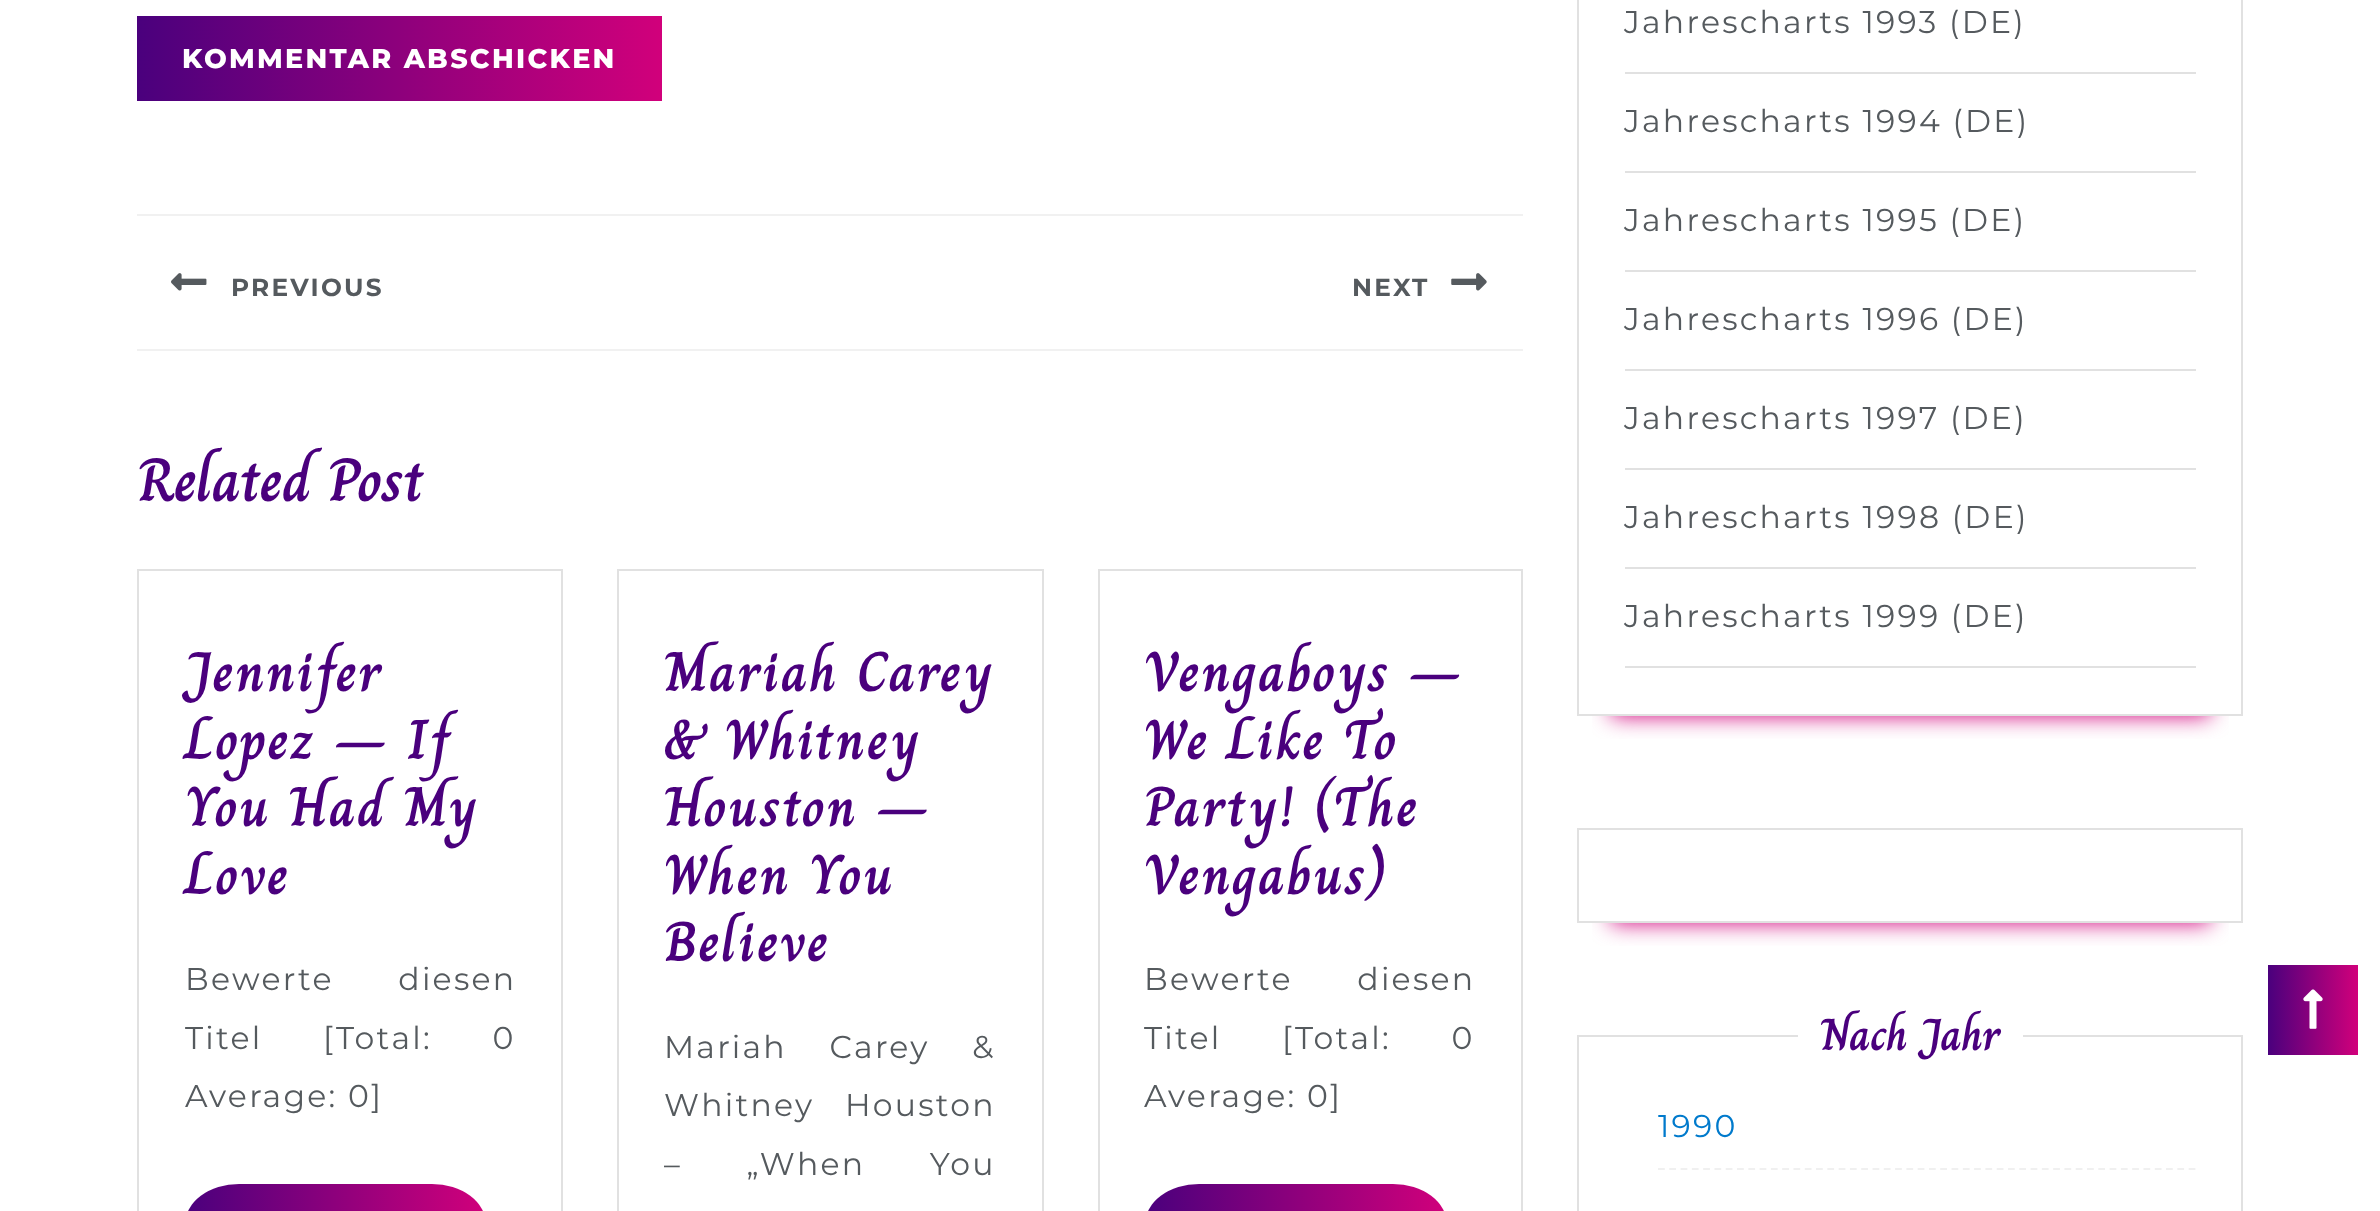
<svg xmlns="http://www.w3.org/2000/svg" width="2380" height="1211">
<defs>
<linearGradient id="g1" gradientUnits="userSpaceOnUse" x1="137" y1="59" x2="662" y2="58"><stop offset="0" stop-color="#4a007d"/><stop offset="1" stop-color="#d1007b"/></linearGradient>
<linearGradient id="g2" gradientUnits="userSpaceOnUse" x1="185" y1="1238" x2="486" y2="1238"><stop offset="0" stop-color="#4a007d"/><stop offset="1" stop-color="#d1007b"/></linearGradient>
<linearGradient id="g3" gradientUnits="userSpaceOnUse" x1="1145" y1="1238" x2="1447" y2="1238"><stop offset="0" stop-color="#4a007d"/><stop offset="1" stop-color="#d1007b"/></linearGradient>
<clipPath id="clip1"><rect x="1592" y="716" width="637" height="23"/></clipPath>
<clipPath id="clip2"><rect x="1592" y="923" width="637" height="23"/></clipPath>
<linearGradient id="g4" gradientUnits="userSpaceOnUse" x1="2268" y1="1010" x2="2358" y2="1010"><stop offset="0" stop-color="#4a007d"/><stop offset="1" stop-color="#d1007b"/></linearGradient>
</defs>
<rect width="100%" height="100%" fill="#fff"/>
<rect x="137" y="16" width="525" height="85" fill="url(#g1)"/>
<text x="182" y="68" style="font-family:Montserrat;font-size:27px;font-weight:800;letter-spacing:2.25px;fill:#fff">KOMMENTAR ABSCHICKEN</text>
<rect x="137" y="214" width="1386" height="2" fill="#f1f1f1"/>
<rect x="137" y="349" width="1386" height="2" fill="#f1f1f1"/>
<image x="171" y="273" width="36" height="18" href="media/1.png"/>
<text x="231" y="296" style="font-family:Montserrat;font-size:24.75px;font-weight:bold;letter-spacing:2.25px;fill:#555a5e">PREVIOUS</text>
<text x="1352" y="296" style="font-family:Montserrat;font-size:24.75px;font-weight:bold;letter-spacing:2.25px;fill:#555a5e">NEXT</text>
<image x="1451" y="273" width="36" height="18" href="media/2.png"/>
<text x="137" y="501" style="font-family:Charm;font-size:61px;font-weight:bold;fill:#4a007d">Related Post</text>
<rect x="138" y="570" width="424" height="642" fill="none" stroke="#e1e1e1" stroke-width="2"/>
<text x="185" y="691" style="font-family:Charm;font-size:56.25px;font-weight:bold;letter-spacing:2.25px;fill:#4a007d">Jennifer</text>
<text x="185" y="759" style="font-family:Charm;font-size:56.25px;font-weight:bold;letter-spacing:2.25px;fill:#4a007d">Lopez – If</text>
<text x="185" y="826" style="font-family:Charm;font-size:56.25px;font-weight:bold;letter-spacing:2.25px;fill:#4a007d">You Had My</text>
<text x="185" y="894" style="font-family:Charm;font-size:56.25px;font-weight:bold;letter-spacing:2.25px;fill:#4a007d">Love</text>
<text x="185" y="990" word-spacing="54" style="font-family:Montserrat;font-size:31.5px;letter-spacing:2.25px;fill:#555a5e">Bewerte diesen</text>
<text x="185" y="1049" word-spacing="50" style="font-family:Montserrat;font-size:31.5px;letter-spacing:2.25px;fill:#555a5e">Titel [Total: 0</text>
<text x="185" y="1107" style="font-family:Montserrat;font-size:31.5px;letter-spacing:2.25px;fill:#555a5e">Average: 0]</text>
<rect x="185" y="1184" width="301" height="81" rx="54" fill="url(#g2)"/>
<rect x="618" y="570" width="425" height="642" fill="none" stroke="#e1e1e1" stroke-width="2"/>
<text x="664" y="691" style="font-family:Charm;font-size:56.25px;font-weight:bold;letter-spacing:2.25px;fill:#4a007d">Mariah Carey</text>
<text x="664" y="759" style="font-family:Charm;font-size:56.25px;font-weight:bold;letter-spacing:2.25px;fill:#4a007d">&amp; Whitney</text>
<text x="664" y="826" style="font-family:Charm;font-size:56.25px;font-weight:bold;letter-spacing:2.25px;fill:#4a007d">Houston –</text>
<text x="664" y="894" style="font-family:Charm;font-size:56.25px;font-weight:bold;letter-spacing:2.25px;fill:#4a007d">When You</text>
<text x="664" y="961" style="font-family:Charm;font-size:56.25px;font-weight:bold;letter-spacing:2.25px;fill:#4a007d">Believe</text>
<text x="664" y="1058" word-spacing="32" style="font-family:Montserrat;font-size:31.5px;letter-spacing:2.25px;fill:#555a5e">Mariah Carey &amp;</text>
<text x="664" y="1116" word-spacing="20" style="font-family:Montserrat;font-size:31.5px;letter-spacing:2.25px;fill:#555a5e">Whitney Houston</text>
<text x="664" y="1175" word-spacing="54" style="font-family:Montserrat;font-size:31.5px;letter-spacing:2.25px;fill:#555a5e">– „When You</text>
<rect x="1099" y="570" width="423" height="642" fill="none" stroke="#e1e1e1" stroke-width="2"/>
<text x="1144" y="691" style="font-family:Charm;font-size:56.25px;font-weight:bold;letter-spacing:2.25px;fill:#4a007d">Vengaboys –</text>
<text x="1144" y="759" style="font-family:Charm;font-size:56.25px;font-weight:bold;letter-spacing:2.25px;fill:#4a007d">We Like To</text>
<text x="1144" y="826" style="font-family:Charm;font-size:56.25px;font-weight:bold;letter-spacing:2.25px;fill:#4a007d">Party! (The</text>
<text x="1144" y="894" style="font-family:Charm;font-size:56.25px;font-weight:bold;letter-spacing:2.25px;fill:#4a007d">Vengabus)</text>
<text x="1144" y="990" word-spacing="54" style="font-family:Montserrat;font-size:31.5px;letter-spacing:2.25px;fill:#555a5e">Bewerte diesen</text>
<text x="1144" y="1049" word-spacing="50" style="font-family:Montserrat;font-size:31.5px;letter-spacing:2.25px;fill:#555a5e">Titel [Total: 0</text>
<text x="1144" y="1107" style="font-family:Montserrat;font-size:31.5px;letter-spacing:2.25px;fill:#555a5e">Average: 0]</text>
<rect x="1145" y="1184" width="302" height="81" rx="54" fill="url(#g3)"/>
<g clip-path="url(#clip1)">
<rect x="1611" y="-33" width="599" height="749" fill="#d1007b" filter="blur(11px)"/>
</g>
<rect x="1578" y="-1" width="664" height="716" fill="none" stroke="#e1e1e1" stroke-width="2"/>
<rect x="1625" y="72" width="571" height="2" fill="#e1e1e1"/>
<text x="1624" y="33" style="font-family:Montserrat;font-size:31.5px;letter-spacing:2.25px;fill:#555a5e">Jahrescharts 1993 (DE)</text>
<rect x="1625" y="171" width="571" height="2" fill="#e1e1e1"/>
<text x="1624" y="132" style="font-family:Montserrat;font-size:31.5px;letter-spacing:2.25px;fill:#555a5e">Jahrescharts 1994 (DE)</text>
<rect x="1625" y="270" width="571" height="2" fill="#e1e1e1"/>
<text x="1624" y="231" style="font-family:Montserrat;font-size:31.5px;letter-spacing:2.25px;fill:#555a5e">Jahrescharts 1995 (DE)</text>
<rect x="1625" y="369" width="571" height="2" fill="#e1e1e1"/>
<text x="1624" y="330" style="font-family:Montserrat;font-size:31.5px;letter-spacing:2.25px;fill:#555a5e">Jahrescharts 1996 (DE)</text>
<rect x="1625" y="468" width="571" height="2" fill="#e1e1e1"/>
<text x="1624" y="429" style="font-family:Montserrat;font-size:31.5px;letter-spacing:2.25px;fill:#555a5e">Jahrescharts 1997 (DE)</text>
<rect x="1625" y="567" width="571" height="2" fill="#e1e1e1"/>
<text x="1624" y="528" style="font-family:Montserrat;font-size:31.5px;letter-spacing:2.25px;fill:#555a5e">Jahrescharts 1998 (DE)</text>
<rect x="1625" y="666" width="571" height="2" fill="#e1e1e1"/>
<text x="1624" y="627" style="font-family:Montserrat;font-size:31.5px;letter-spacing:2.25px;fill:#555a5e">Jahrescharts 1999 (DE)</text>
<g clip-path="url(#clip2)">
<rect x="1611" y="896" width="599" height="27" fill="#d1007b" filter="blur(11px)"/>
</g>
<rect x="1578" y="829" width="664" height="93" fill="none" stroke="#e1e1e1" stroke-width="2"/>
<rect x="1578" y="1036" width="664" height="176" fill="none" stroke="#e1e1e1" stroke-width="2"/>
<rect x="1798" y="1035" width="225" height="2" fill="#fff"/>
<text x="1820" y="1050" style="font-family:Charm;font-size:45px;font-weight:bold;fill:#4a007d">Nach Jahr</text>
<path d="M1658 1169h538" fill="none" stroke="#f0f0f0" stroke-width="2.2" stroke-dasharray="6.75 4.54"/>
<text x="1658" y="1137" style="font-family:Montserrat;font-size:31.5px;letter-spacing:2.25px;fill:#007acc">1990</text>
<rect x="2268" y="965" width="90" height="90" fill="url(#g4)"/>
<image x="2303" y="989" width="20" height="40" href="media/3.png"/>
</svg>
